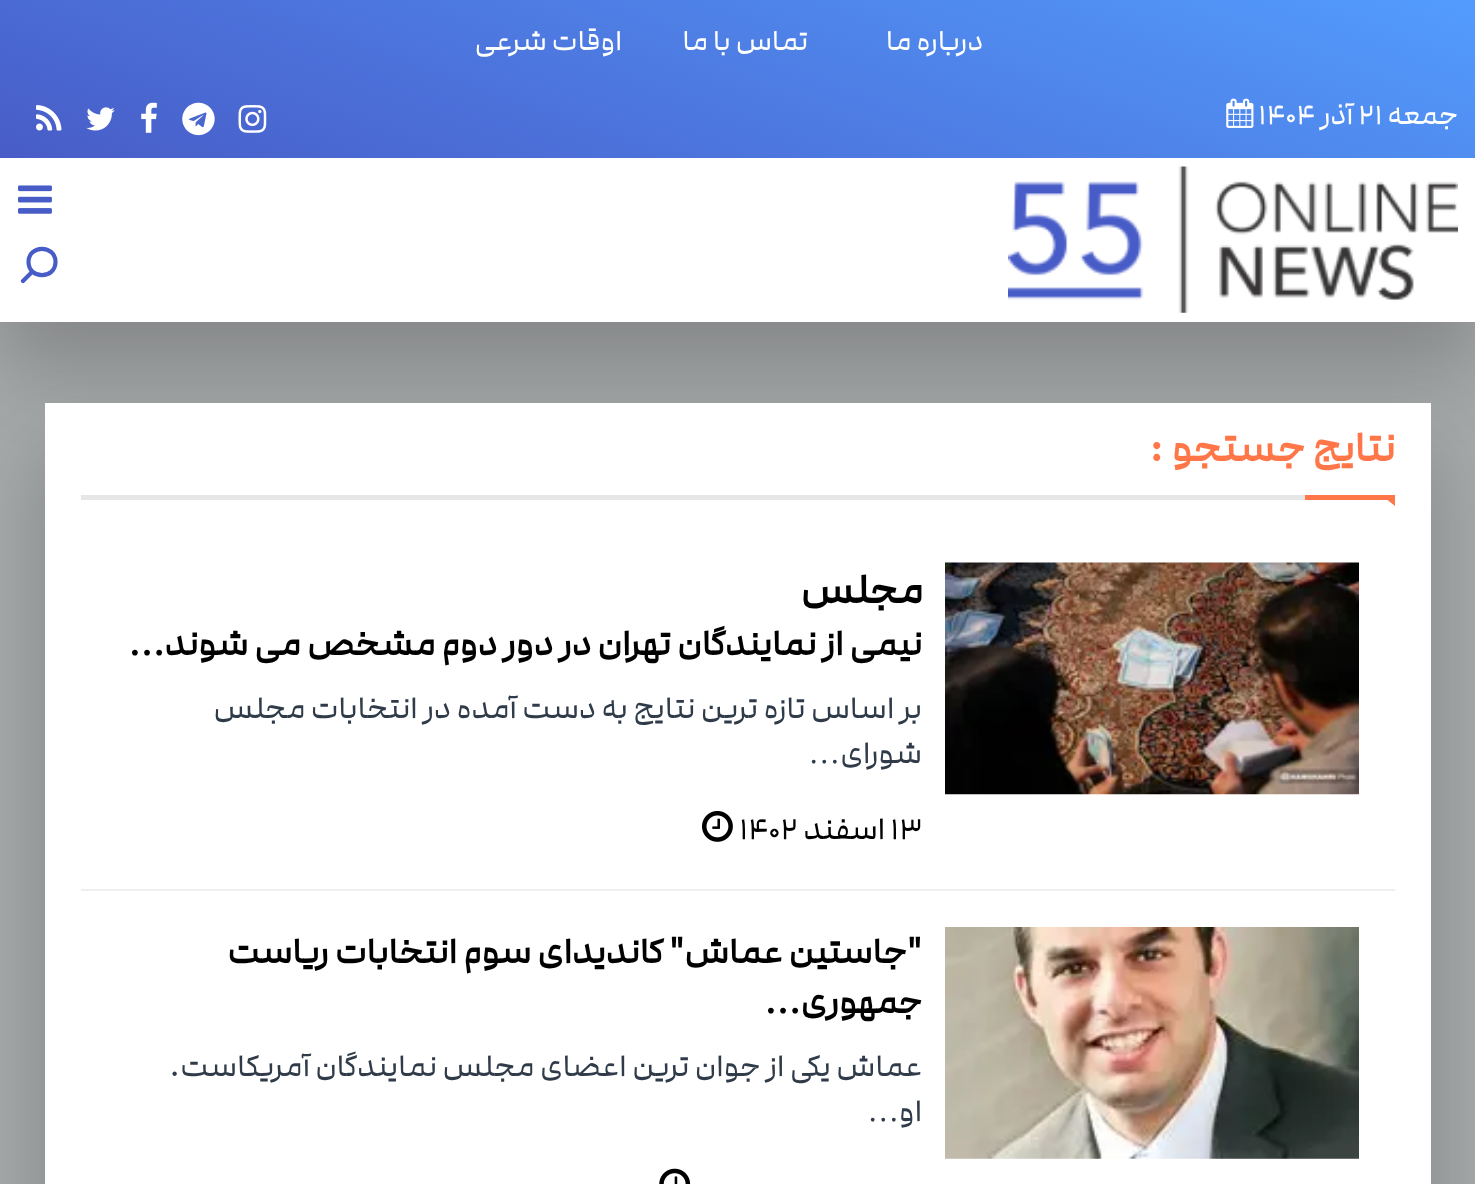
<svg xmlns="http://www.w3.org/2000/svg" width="1475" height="1184">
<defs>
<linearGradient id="g1" gradientUnits="userSpaceOnUse" x1="626" y1="385" x2="850" y2="-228"><stop offset="0" stop-color="#485cc7"/><stop offset="1" stop-color="#539cfe"/></linearGradient>
</defs>
<rect width="100%" height="100%" fill="#a6a9aa"/>
<rect y="45" width="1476" height="322" fill="#00000033" filter="blur(39.5px)"/>
<rect width="1475" height="158" fill="url(#g1)"/>
<text x="983" y="50" style="font-family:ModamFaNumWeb;font-size:29.25px;direction:rtl;fill:#fff">درباره ما</text>
<text x="808" y="50" style="font-family:ModamFaNumWeb;font-size:29.25px;direction:rtl;fill:#fff">تماس با ما</text>
<text x="622" y="50" style="font-family:ModamFaNumWeb;font-size:29.25px;direction:rtl;fill:#fff">اوقات شرعی</text>
<text x="1458" y="124" style="font-family:ModamFaNumWeb;font-size:29.25px;direction:rtl;fill:#fff">جمعه</text>
<text x="1358" y="124" style="font-family:ModamFaNumWeb;font-size:29.25px;fill:#fff">۲۱</text>
<text x="1353" y="124" style="font-family:ModamFaNumWeb;font-size:29.25px;direction:rtl;fill:#fff">آذر</text>
<text x="1258" y="124" style="font-family:ModamFaNumWeb;font-size:29.25px;fill:#fff">۱۴۰۴</text>
<image x="1226" y="98" width="28" height="30" href="media/1.png"/>
<image x="238" y="105" width="29" height="28" href="media/2.png"/>
<image x="182" y="102" width="33" height="34" href="media/3.png"/>
<image x="141" y="102" width="16" height="31" href="media/4.png"/>
<image x="86" y="107" width="29" height="24" href="media/5.png"/>
<image x="36" y="105" width="26" height="26" href="media/6.png"/>
<rect y="158" width="1475" height="164" fill="#fff"/>
<image x="1008" y="166" width="450" height="147" href="media/7.png"/>
<image x="18" y="185" width="34" height="29" href="media/8.png"/>
<path d="M31.5 272.5l-8.5 8.5m32.5-19c0 17.5-27 17.5-27 0c0-17.5 27-17.5 27 0z" fill="none" stroke="#485cc7" stroke-width="4.2" stroke-linecap="round" stroke-linejoin="round"/>
<rect x="45" y="448" width="1386" height="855" fill="#00000033" filter="blur(39.5px)"/>
<rect x="45" y="403" width="1386" height="781" fill="#fff"/>
<rect x="81" y="495" width="1224" height="5" fill="#e6e6e6"/>
<text x="1395" y="461" style="font-family:ModamFaNumWeb;font-size:42px;font-weight:bold;direction:rtl;fill:#ff7648">نتایج جستجو</text>
<text x="1149" y="461" style="font-family:ModamFaNumWeb;font-size:42px;font-weight:bold;fill:#ff7648">:</text>
<path d="M1381.5 495h13.5v11z" fill="#ff7648"/>
<rect x="1305" y="495" width="90" height="5" fill="#ff7648"/>
<rect x="81" y="889" width="1314" height="2" fill="#efefef"/>
<image x="945" y="562" width="414" height="233" href="media/9.png"/>
<text x="923" y="603" style="font-family:ModamFaNumWeb;font-size:42px;font-weight:bold;direction:rtl;fill:#000">مجلس</text>
<text x="922" y="655" style="font-family:ModamFaNumWeb;font-size:36px;font-weight:bold;direction:rtl;fill:#000">نیمی از نمایندگان تهران در دور دوم مشخص می شوند</text>
<text x="165" y="655" style="font-family:Liberation Serif;font-size:36px;font-weight:bold;direction:rtl;fill:#000">…</text>
<text x="922" y="718" style="font-family:ModamFaNumWeb;font-size:31.5px;direction:rtl;fill:#303b49">بر اساس تازه ترین نتایج به دست آمده در انتخابات مجلس</text>
<text x="922" y="763" style="font-family:ModamFaNumWeb;font-size:31.5px;direction:rtl;fill:#303b49">شورای</text>
<text x="840" y="763" style="font-family:Liberation Serif;font-size:31.5px;direction:rtl;fill:#303b49">…</text>
<text x="890" y="839" style="font-family:ModamFaNumWeb;font-size:31.5px;fill:#000">۱۳</text>
<text x="885" y="839" style="font-family:ModamFaNumWeb;font-size:31.5px;direction:rtl;fill:#000">اسفند</text>
<text x="739" y="839" style="font-family:ModamFaNumWeb;font-size:31.5px;fill:#000">۱۴۰۲</text>
<image x="702" y="811" width="31" height="31" href="media/10.png"/>
<image x="945" y="927" width="414" height="232" href="media/11.png"/>
<text x="922" y="963" style="font-family:ModamFaNumWeb;font-size:36px;font-weight:bold;direction:rtl;fill:#000">"جاستین عماش" کاندیدای سوم انتخابات ریاست</text>
<text x="922" y="1013" style="font-family:ModamFaNumWeb;font-size:36px;font-weight:bold;direction:rtl;fill:#000">جمهوری</text>
<text x="801" y="1013" style="font-family:Liberation Serif;font-size:36px;font-weight:bold;direction:rtl;fill:#000">…</text>
<text x="922" y="1076" style="font-family:ModamFaNumWeb;font-size:31.5px;direction:rtl;fill:#303b49">عماش یکی از جوان ترین اعضای مجلس نمایندگان آمریکاست.</text>
<text x="922" y="1121" style="font-family:ModamFaNumWeb;font-size:31.5px;direction:rtl;fill:#303b49">او</text>
<text x="899" y="1121" style="font-family:Liberation Serif;font-size:31.5px;direction:rtl;fill:#303b49">…</text>
<image x="659" y="1168" width="32" height="16" href="media/12.png"/>
</svg>
